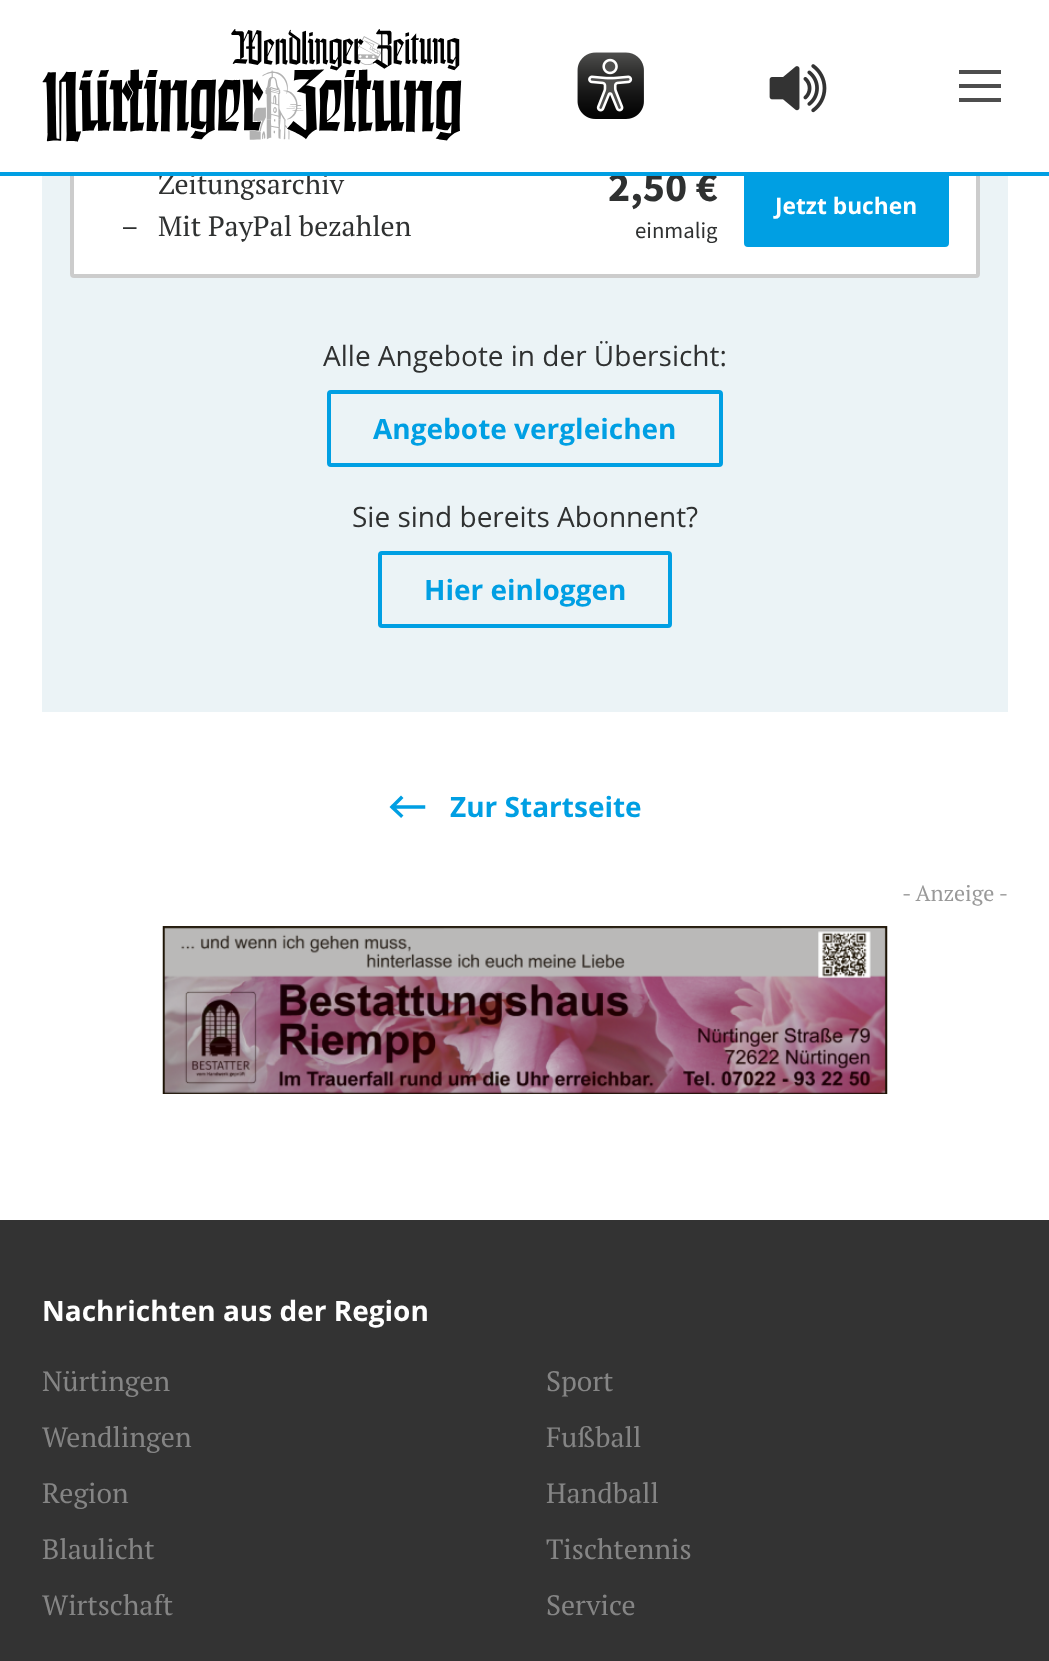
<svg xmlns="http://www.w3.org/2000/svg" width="1049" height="1661">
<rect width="100%" height="100%" fill="#fff"/>
<rect x="42" y="176" width="966" height="536" fill="#ebf3f6"/>
<rect x="70" y="-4" width="910" height="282" rx="4" fill="#fff"/>
<rect x="72" y="-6" width="906" height="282" rx="2" fill="none" stroke="#00000033" stroke-width="4"/>
<rect x="746" y="165" width="201" height="80" rx="2" fill="#009fe3" stroke="#009fe3" stroke-width="4"/>
<rect x="70" width="910" height="172" fill="#fff"/>
<text x="158" y="194" style="font-family:PT Serif;font-size:28px;fill:#2f3131">Zeitungsarchiv</text>
<text x="608" y="201" style="font-family:Source Sans Pro;font-size:42px;font-weight:bold;fill:#2f3131">2,50 €</text>
<rect y="172" width="1049" height="4" fill="#009fe3"/>
<image x="42" y="29" width="420" height="113" href="media/1.png"/>
<image x="577" y="52" width="67" height="67" href="media/2.png"/>
<image x="769" y="64" width="58" height="49" href="media/3.png"/>
<rect x="959" y="70" width="42" height="4" fill="#4d4d4d"/>
<rect x="959" y="84" width="42" height="4" fill="#4d4d4d"/>
<rect x="959" y="98" width="42" height="4" fill="#4d4d4d"/>
<text x="121" y="236" style="font-family:PT Serif;font-size:28px;fill:#2f3131">–</text>
<text x="158" y="236" style="font-family:PT Serif;font-size:28px;fill:#2f3131">Mit PayPal bezahlen</text>
<text x="775" y="214" style="font-family:Open Sans;font-size:22.75px;font-weight:bold;fill:#fff">Jetzt buchen</text>
<text x="635" y="238" style="font-family:Source Sans Pro;font-size:22.75px;fill:#2f3131">einmalig</text>
<text x="323" y="366" style="font-family:Open Sans;font-size:28px;fill:#2f3131">Alle Angebote in der Übersicht:</text>
<rect x="329" y="392" width="392" height="73" rx="2" fill="none" stroke="#009fe3" stroke-width="4"/>
<text x="373" y="439" style="font-family:Open Sans;font-size:28px;font-weight:bold;fill:#009fe3">Angebote vergleichen</text>
<text x="352" y="527" style="font-family:Open Sans;font-size:28px;fill:#2f3131">Sie sind bereits Abonnent?</text>
<rect x="380" y="553" width="290" height="73" rx="2" fill="none" stroke="#009fe3" stroke-width="4"/>
<text x="424" y="600" style="font-family:Open Sans;font-size:28px;font-weight:bold;fill:#009fe3">Hier einloggen</text>
<path d="M401 798l-9 9m9 8.5l-9-8.5m2 0h29.5" fill="none" stroke="#009fe3" stroke-width="3.5" stroke-linecap="square"/>
<text x="450" y="817" style="font-family:Open Sans;font-size:28px;font-weight:bold;fill:#009fe3">Zur Startseite</text>
<text x="902" y="901" style="font-family:PT Serif;font-size:22px;fill:#999">- Anzeige -</text>
<image x="162" y="926" width="726" height="168" href="media/4.png"/>
<rect y="1220" width="1049" height="441" fill="#333"/>
<text x="42" y="1321" style="font-family:Open Sans;font-size:28px;font-weight:bold;fill:#fff">Nachrichten aus der Region</text>
<text x="42" y="1391" style="font-family:PT Serif;font-size:28px;fill:#858585">Nürtingen</text>
<text x="42" y="1447" style="font-family:PT Serif;font-size:28px;fill:#858585">Wendlingen</text>
<text x="42" y="1503" style="font-family:PT Serif;font-size:28px;fill:#858585">Region</text>
<text x="42" y="1559" style="font-family:PT Serif;font-size:28px;fill:#858585">Blaulicht</text>
<text x="546" y="1391" style="font-family:PT Serif;font-size:28px;fill:#858585">Sport</text>
<text x="546" y="1447" style="font-family:PT Serif;font-size:28px;fill:#858585">Fußball</text>
<text x="546" y="1503" style="font-family:PT Serif;font-size:28px;fill:#858585">Handball</text>
<text x="546" y="1559" style="font-family:PT Serif;font-size:28px;fill:#858585">Tischtennis</text>
<text x="42" y="1615" style="font-family:PT Serif;font-size:28px;fill:#858585">Wirtschaft</text>
<text x="546" y="1615" style="font-family:PT Serif;font-size:28px;fill:#858585">Service</text>
</svg>
